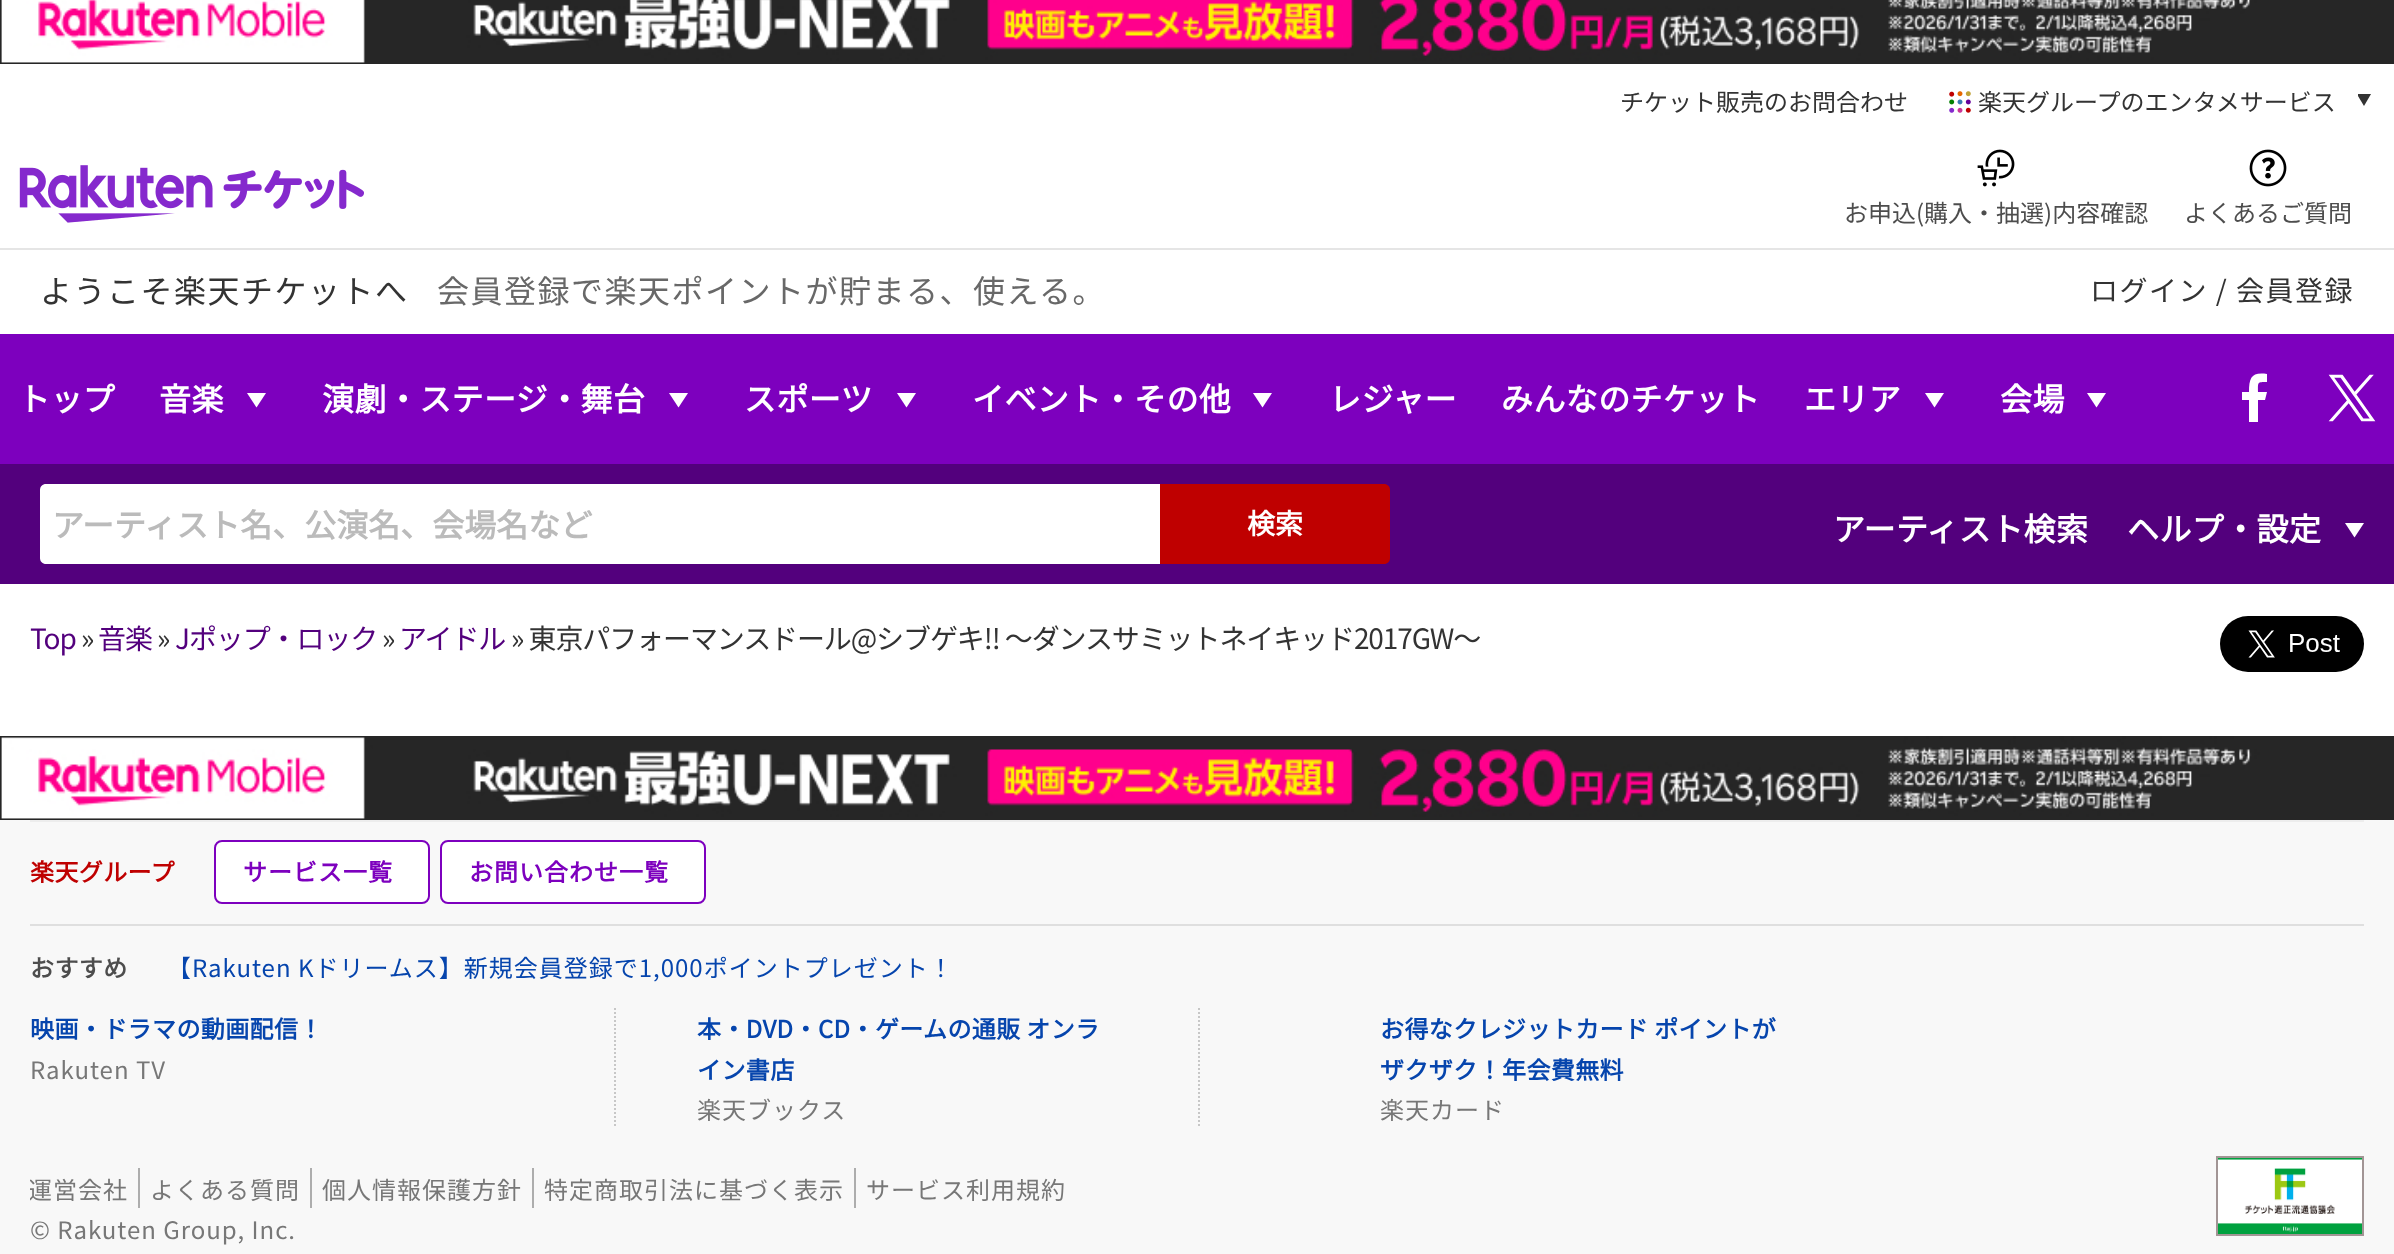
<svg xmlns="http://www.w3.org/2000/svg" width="2394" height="1254">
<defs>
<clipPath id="clip1"><rect x="30" y="1168" width="1600" height="40"/></clipPath>
</defs>
<rect width="100%" height="100%" fill="#fff"/>
<image x="0" y="0" width="2394" height="64" href="media/1.png"/>
<text x="1620" y="111" style="font-family:Noto Sans JP;font-size:24px;font-weight:100;fill:#333">チケット販売のお問合わせ</text>
<image x="1949" y="91" width="22" height="22" href="media/2.png"/>
<text x="1978" y="111" style="font-family:Noto Sans JP;font-size:24px;font-weight:100;fill:#333">楽天グループのエンタメサービス</text>
<path d="M2358 96v-2h13l-7 12z" fill="#333"/>
<image x="19" y="165" width="345" height="58" href="media/3.png"/>
<image x="1977" y="149" width="38" height="38" href="media/4.png"/>
<text x="1844" y="222" style="font-family:Noto Sans JP;font-size:24px;font-weight:100;fill:#4d4d4d">お申込(購入・抽選)内容確認</text>
<image x="2249" y="149" width="38" height="38" href="media/5.png"/>
<text x="2184" y="222" style="font-family:Noto Sans JP;font-size:24px;font-weight:100;fill:#4d4d4d">よくあるご質問</text>
<rect y="248" width="2394" height="2" fill="#e5e5e5"/>
<text x="40" y="303" style="font-family:Noto Sans JP;font-size:32px;font-weight:100;letter-spacing:1.5px;fill:#333">ようこそ楽天チケットへ</text>
<text x="437" y="303" style="font-family:Noto Sans JP;font-size:32px;font-weight:100;letter-spacing:1.5px;fill:#686868">会員登録で楽天ポイントが貯まる、使える。</text>
<text x="2090" y="301" style="font-family:Noto Sans JP;font-size:28px;font-weight:100;letter-spacing:1.5px;fill:#333">ログイン / 会員登録</text>
<rect y="334" width="2394" height="130" fill="#7d00be"/>
<text x="18" y="411" style="font-family:Noto Sans JP;font-size:32px;font-weight:bold;letter-spacing:0.4px;fill:#fff">トップ</text>
<text x="159" y="411" style="font-family:Noto Sans JP;font-size:32px;font-weight:bold;letter-spacing:0.4px;fill:#fff">音楽</text>
<path d="M266 393l-9.5 14.5l-9.5-14.5z" fill="#fff"/>
<text x="322" y="411" style="font-family:Noto Sans JP;font-size:32px;font-weight:bold;letter-spacing:0.4px;fill:#fff">演劇・ステージ・舞台</text>
<path d="M688 393l-9.5 14.5l-9.5-14.5z" fill="#fff"/>
<text x="744" y="411" style="font-family:Noto Sans JP;font-size:32px;font-weight:bold;letter-spacing:0.4px;fill:#fff">スポーツ</text>
<path d="M916 393l-9.5 14.5l-9.5-14.5z" fill="#fff"/>
<text x="972" y="411" style="font-family:Noto Sans JP;font-size:32px;font-weight:bold;letter-spacing:0.4px;fill:#fff">イベント・その他</text>
<path d="M1272 393l-9.5 14.5l-9.5-14.5z" fill="#fff"/>
<text x="1329" y="411" style="font-family:Noto Sans JP;font-size:32px;font-weight:bold;letter-spacing:0.4px;fill:#fff">レジャー</text>
<text x="1501" y="411" style="font-family:Noto Sans JP;font-size:32px;font-weight:bold;letter-spacing:0.4px;fill:#fff">みんなのチケット</text>
<text x="1804" y="411" style="font-family:Noto Sans JP;font-size:32px;font-weight:bold;letter-spacing:0.4px;fill:#fff">エリア</text>
<path d="M1944 393l-9.5 14.5l-9.5-14.5z" fill="#fff"/>
<text x="2000" y="411" style="font-family:Noto Sans JP;font-size:32px;font-weight:bold;letter-spacing:0.4px;fill:#fff">会場</text>
<path d="M2106 393l-9.5 14.5l-9.5-14.5z" fill="#fff"/>
<path d="M2249 422h9v-22h7l2-8h-9c0-10-1-10 9-10v-8c-15-2-18 3-18 18h-7v8h7z" fill="#fff"/>
<image x="2328" y="374" width="48" height="48" href="media/6.png"/>
<rect y="464" width="2394" height="120" fill="#53007d"/>
<text x="1833" y="541" style="font-family:Noto Sans JP;font-size:32px;font-weight:bold;letter-spacing:0.4px;fill:#fff">アーティスト検索</text>
<text x="2127" y="541" style="font-family:Noto Sans JP;font-size:32px;font-weight:bold;letter-spacing:0.4px;fill:#fff">ヘルプ・設定</text>
<path d="M2364 523l-9.5 14.5l-9.5-14.5z" fill="#fff"/>
<path d="M46 484h1114v80h-1114c-3.5 0-6-2.5-6-6v-68c0-3.5 2.5-6 6-6z" fill="#fff"/>
<text x="52" y="537" style="font-family:Noto Sans JP;font-size:32px;font-weight:bold;fill:#bbb">アーティスト名、公演名、会場名など</text>
<path d="M1160 484h224c3.5 0 6 2.5 6 6v68c0 3.5-2.5 6-6 6h-224z" fill="#bf0000"/>
<text x="1247" y="534" style="font-family:Noto Sans JP;font-size:28px;font-weight:bold;fill:#fff">検索</text>
<text x="30" y="649" style="font-family:Noto Sans JP;font-size:28px;font-weight:100;letter-spacing:-1.1px;fill:#53007d">Top</text>
<text x="81" y="649" style="font-family:Noto Sans JP;font-size:28px;font-weight:100;letter-spacing:-1.1px;fill:#333">»</text>
<text x="98" y="649" style="font-family:Noto Sans JP;font-size:28px;font-weight:100;letter-spacing:-1.1px;fill:#53007d">音楽</text>
<text x="157" y="649" style="font-family:Noto Sans JP;font-size:28px;font-weight:100;letter-spacing:-1.1px;fill:#333">»</text>
<text x="175" y="649" style="font-family:Noto Sans JP;font-size:28px;font-weight:100;letter-spacing:-1.1px;fill:#53007d">Jポップ・ロック</text>
<text x="382" y="649" style="font-family:Noto Sans JP;font-size:28px;font-weight:100;letter-spacing:-1.1px;fill:#333">»</text>
<text x="399" y="649" style="font-family:Noto Sans JP;font-size:28px;font-weight:100;letter-spacing:-1.1px;fill:#53007d">アイドル</text>
<text x="511" y="649" style="font-family:Noto Sans JP;font-size:28px;font-weight:100;letter-spacing:-1.1px;fill:#333">» 東京パフォーマンスドール@シブゲキ!! 〜ダンスサミットネイキッド2017GW〜</text>
<image x="2220" y="616" width="144" height="56" href="media/7.png"/>
<rect y="820" width="2394" height="434" fill="#f8f8f8"/>
<image x="0" y="736" width="2394" height="84" href="media/8.png"/>
<rect x="30" y="820" width="2334" height="2" fill="#ededed"/>
<text x="30" y="881" style="font-family:Noto Sans JP;font-size:24px;font-weight:bold;letter-spacing:0.4px;fill:#bf0000">楽天グループ</text>
<rect x="215" y="841" width="214" height="62" rx="7" fill="#fff" stroke="#7d00be" stroke-width="2"/>
<text x="243" y="881" style="font-family:Noto Sans JP;font-size:24px;font-weight:bold;letter-spacing:1px;fill:#7d00be">サービス一覧</text>
<rect x="441" y="841" width="264" height="62" rx="7" fill="#fff" stroke="#7d00be" stroke-width="2"/>
<text x="469" y="881" style="font-family:Noto Sans JP;font-size:24px;font-weight:bold;letter-spacing:1px;fill:#7d00be">お問い合わせ一覧</text>
<rect x="30" y="924" width="2334" height="2" fill="#dfdfdf"/>
<text x="30" y="977" style="font-family:Noto Sans JP;font-size:24px;font-weight:bold;letter-spacing:0.4px;fill:#4d4d4d">おすすめ</text>
<text x="167" y="977" style="font-family:Noto Sans JP;font-size:24px;font-weight:100;letter-spacing:1px;fill:#0645ad">【Rakuten Kドリームス】新規会員登録で1,000ポイントプレゼント！</text>
<text x="30" y="1038" style="font-family:Noto Sans JP;font-size:24px;font-weight:bold;letter-spacing:0.4px;fill:#0645ad">映画・ドラマの動画配信！</text>
<text x="30" y="1079" style="font-family:Noto Sans JP;font-size:24px;font-weight:100;letter-spacing:1px;fill:#777">Rakuten TV</text>
<path d="M615 1008v120" fill="none" stroke="#c7c7c7" stroke-width="2" stroke-dasharray="2 2"/>
<text x="697" y="1038" style="font-family:Noto Sans JP;font-size:24px;font-weight:bold;letter-spacing:0.4px;fill:#0645ad">本・DVD・CD・ゲームの通販 オンラ</text>
<text x="697" y="1079" style="font-family:Noto Sans JP;font-size:24px;font-weight:bold;letter-spacing:0.4px;fill:#0645ad">イン書店</text>
<text x="697" y="1119" style="font-family:Noto Sans JP;font-size:24px;font-weight:100;letter-spacing:1px;fill:#777">楽天ブックス</text>
<path d="M1199 1008v120" fill="none" stroke="#c7c7c7" stroke-width="2" stroke-dasharray="2 2"/>
<text x="1380" y="1038" style="font-family:Noto Sans JP;font-size:24px;font-weight:bold;letter-spacing:0.4px;fill:#0645ad">お得なクレジットカード ポイントが</text>
<text x="1380" y="1079" style="font-family:Noto Sans JP;font-size:24px;font-weight:bold;letter-spacing:0.4px;fill:#0645ad">ザクザク！年会費無料</text>
<text x="1380" y="1119" style="font-family:Noto Sans JP;font-size:24px;font-weight:100;letter-spacing:1px;fill:#777">楽天カード</text>
<g clip-path="url(#clip1)">
<text x="28" y="1199" style="font-family:Noto Sans JP;font-size:24px;font-weight:100;letter-spacing:1px;fill:#777">運営会社</text>
</g>
<rect x="138" y="1168" width="2" height="40" fill="#adadad"/>
<text x="150" y="1199" style="font-family:Noto Sans JP;font-size:24px;font-weight:100;letter-spacing:1px;fill:#777">よくある質問</text>
<rect x="310" y="1168" width="2" height="40" fill="#adadad"/>
<text x="322" y="1199" style="font-family:Noto Sans JP;font-size:24px;font-weight:100;letter-spacing:1px;fill:#777">個人情報保護方針</text>
<rect x="532" y="1168" width="2" height="40" fill="#adadad"/>
<text x="544" y="1199" style="font-family:Noto Sans JP;font-size:24px;font-weight:100;letter-spacing:1px;fill:#777">特定商取引法に基づく表示</text>
<rect x="854" y="1168" width="2" height="40" fill="#adadad"/>
<text x="866" y="1199" style="font-family:Noto Sans JP;font-size:24px;font-weight:100;letter-spacing:1px;fill:#777">サービス利用規約</text>
<text x="30" y="1239" style="font-family:Noto Sans JP;font-size:24px;font-weight:100;letter-spacing:1px;fill:#777">© Rakuten Group, Inc.</text>
<rect x="2217" y="1157" width="146" height="78" fill="none" stroke="#a29595" stroke-width="2"/>
<image x="2218" y="1158" width="144" height="76" href="media/9.png"/>
</svg>
